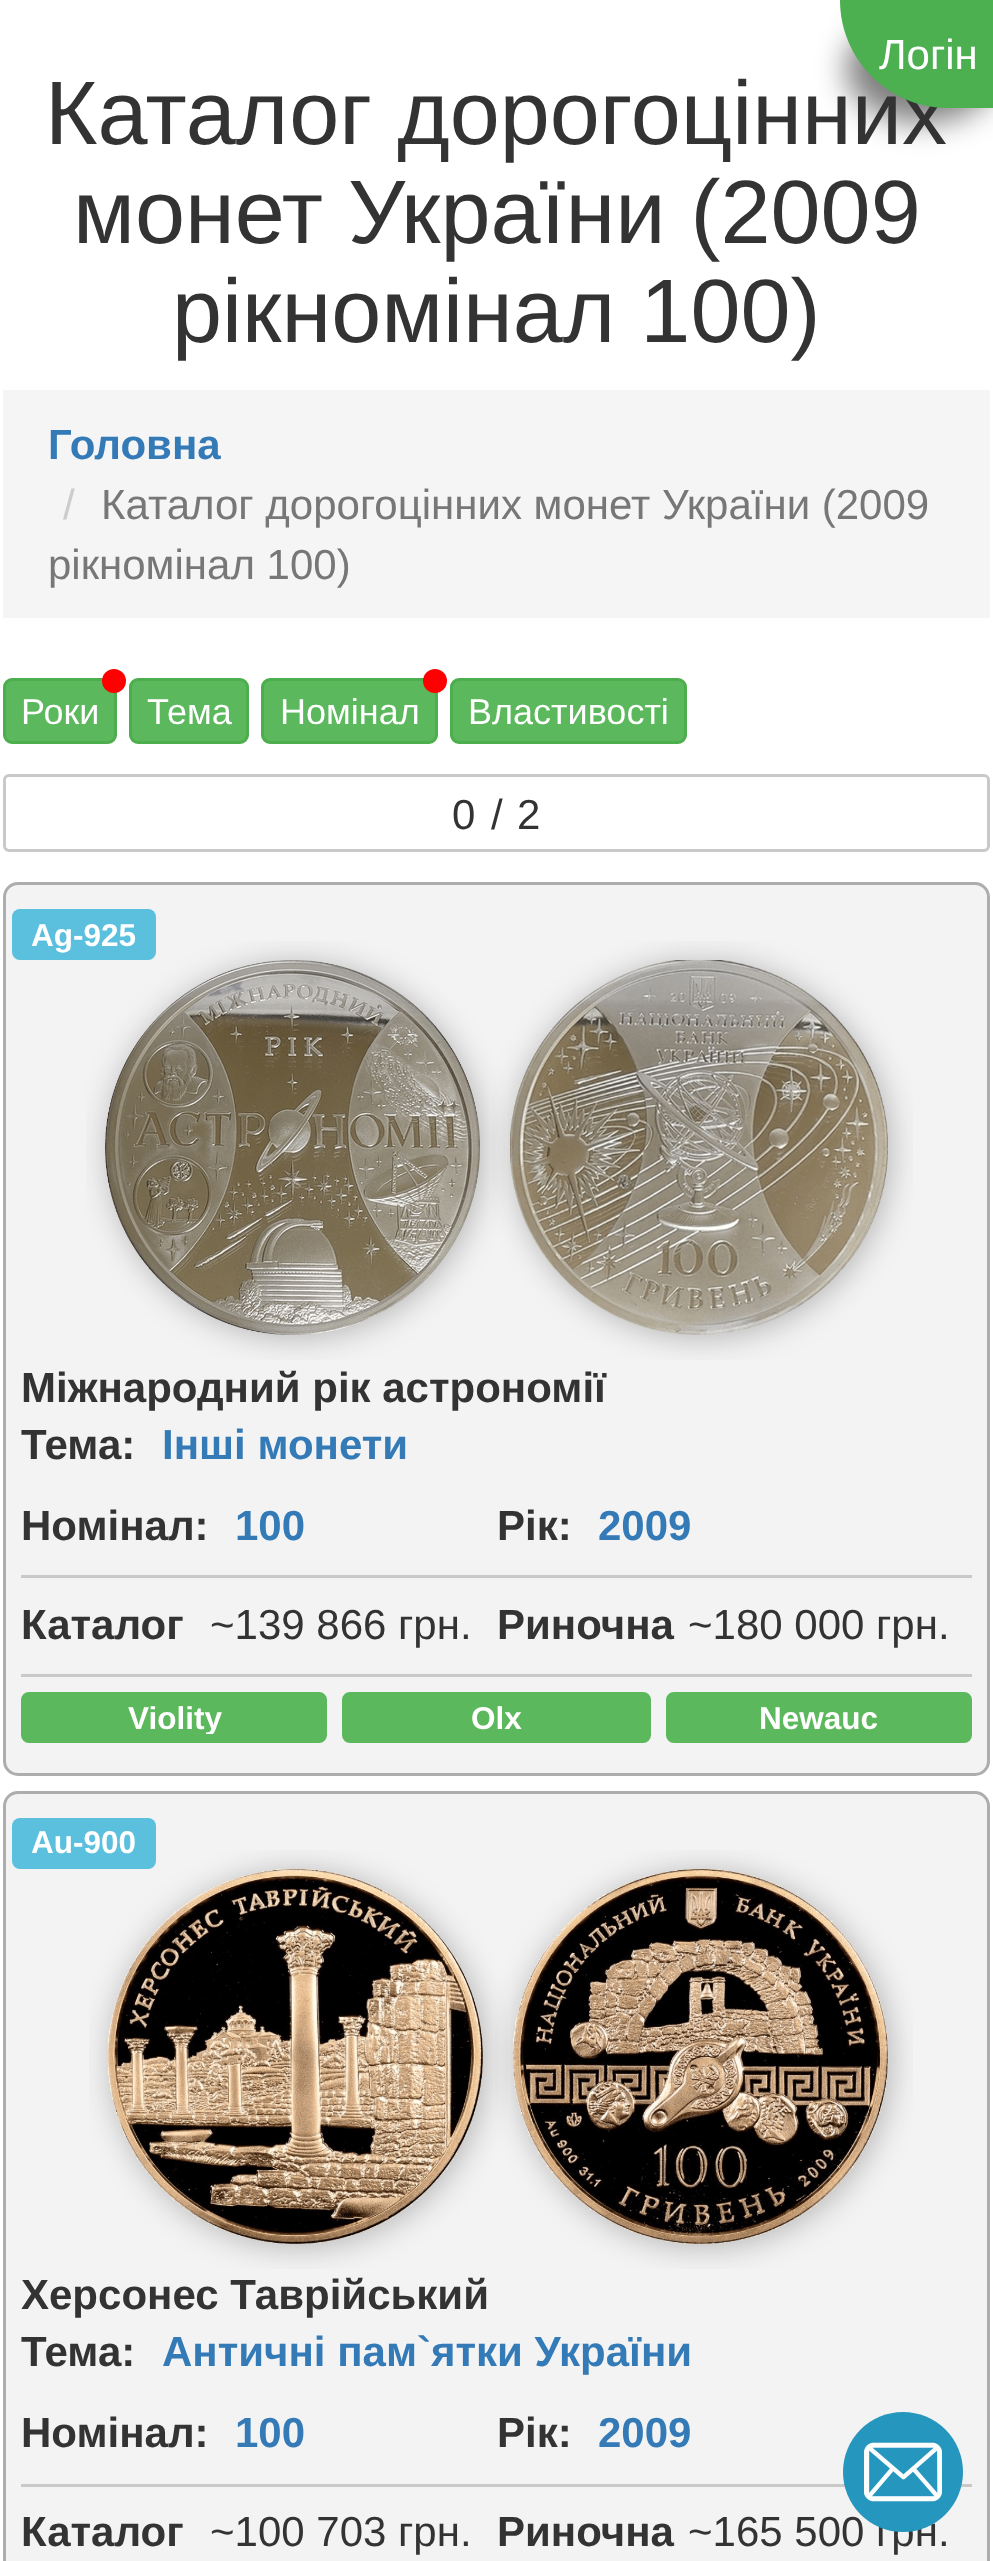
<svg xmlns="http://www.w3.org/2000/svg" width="993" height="2561">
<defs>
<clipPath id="clip1"><rect x="30" y="1701" width="288" height="33"/></clipPath>
</defs>
<rect width="100%" height="100%" fill="#fff"/>
<rect x="846" y="15" width="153" height="108" rx="108" fill="#00000080" filter="blur(15px)"/>
<text x="45" y="144" style="font-family:Liberation Sans;font-size:90px;fill:#333">Каталог дорогоцінних</text>
<path d="M840 0h153v108h-45c-59.5 0-108-48.5-108-108z" fill="#4caf50"/>
<text x="879" y="69" style="font-family:Liberation Sans;font-size:42px;fill:#fff">Логін</text>
<text x="73" y="243" style="font-family:Liberation Sans;font-size:90px;fill:#333">монет України (2009</text>
<text x="172" y="342" style="font-family:Liberation Sans;font-size:90px;fill:#333">рікномінал 100)</text>
<rect x="3" y="390" width="987" height="228" fill="#f5f5f5"/>
<text x="48" y="459" style="font-family:Liberation Sans;font-size:42px;font-weight:bold;fill:#337ab7">Головна</text>
<text x="63" y="519" style="font-family:Liberation Sans;font-size:42px;fill:#ccc">/</text>
<text x="101" y="519" style="font-family:Liberation Sans;font-size:42px;fill:#777">Каталог дорогоцінних монет України (2009</text>
<text x="48" y="579" style="font-family:Liberation Sans;font-size:42px;fill:#777">рікномінал 100)</text>
<rect x="4.5" y="679.5" width="111" height="63" rx="7.5" fill="#5cb85c" stroke="#4cae4c" stroke-width="3"/>
<circle cx="114" cy="681" r="12" fill="#f00"/>
<text x="21" y="724" style="font-family:Liberation Sans;font-size:36px;fill:#fff">Роки</text>
<rect x="130.5" y="679.5" width="117" height="63" rx="7.5" fill="#5cb85c" stroke="#4cae4c" stroke-width="3"/>
<text x="147" y="724" style="font-family:Liberation Sans;font-size:36px;fill:#fff">Тема</text>
<rect x="262.5" y="679.5" width="174" height="63" rx="7.5" fill="#5cb85c" stroke="#4cae4c" stroke-width="3"/>
<circle cx="435" cy="681" r="12" fill="#f00"/>
<text x="280" y="724" style="font-family:Liberation Sans;font-size:36px;fill:#fff">Номінал</text>
<rect x="451.5" y="679.5" width="234" height="63" rx="7.5" fill="#5cb85c" stroke="#4cae4c" stroke-width="3"/>
<text x="468" y="724" style="font-family:Liberation Sans;font-size:36px;fill:#fff">Властивості</text>
<rect x="4.5" y="775.5" width="984" height="75" rx="4.5" fill="none" stroke="#c9c9c9" stroke-width="3"/>
<text x="452" y="829" style="font-family:Liberation Sans;font-size:42px;fill:#333">0</text>
<text x="491" y="829" style="font-family:Liberation Sans;font-size:42px;fill:#333">/</text>
<text x="517" y="829" style="font-family:Liberation Sans;font-size:42px;fill:#333">2</text>
<rect x="4.5" y="883.5" width="984" height="891" rx="13.5" fill="#f3f3f3" stroke="#adadad" stroke-width="3"/>
<rect x="12" y="909" width="144" height="51" rx="8" fill="#5bc0de"/>
<text x="31" y="946" style="font-family:Liberation Sans;font-size:31.5px;font-weight:bold;fill:#fff">Ag-925</text>
<image x="86" y="941" width="419" height="419" href="media/1.png"/>
<image x="492" y="941" width="421" height="419" href="media/2.png"/>
<text x="21" y="1402" style="font-family:Liberation Sans;font-size:42px;font-weight:bold;fill:#333">Міжнародний рік астрономії</text>
<text x="21" y="1459" style="font-family:Liberation Sans;font-size:42px;font-weight:bold;fill:#333">Тема:</text>
<text x="162" y="1459" style="font-family:Liberation Sans;font-size:42px;font-weight:bold;fill:#337ab7">Інші монети</text>
<text x="21" y="1540" style="font-family:Liberation Sans;font-size:42px;font-weight:bold;fill:#333">Номінал:</text>
<text x="235" y="1540" style="font-family:Liberation Sans;font-size:42px;font-weight:bold;fill:#337ab7">100</text>
<text x="497" y="1540" style="font-family:Liberation Sans;font-size:42px;font-weight:bold;fill:#333">Рік:</text>
<text x="598" y="1540" style="font-family:Liberation Sans;font-size:42px;font-weight:bold;fill:#337ab7">2009</text>
<rect x="21" y="1575" width="951" height="3" fill="#c9c9c9"/>
<text x="21" y="1639" style="font-family:Liberation Sans;font-size:42px;font-weight:bold;fill:#333">Каталог</text>
<text x="210" y="1639" style="font-family:Liberation Sans;font-size:42px;fill:#333">~139 866 грн.</text>
<text x="497" y="1639" style="font-family:Liberation Sans;font-size:42px;font-weight:bold;fill:#333">Риночна</text>
<text x="688" y="1639" style="font-family:Liberation Sans;font-size:42px;fill:#333">~180 000 грн.</text>
<rect x="21" y="1674" width="951" height="3" fill="#c9c9c9"/>
<rect x="25.5" y="1696.5" width="297" height="42" rx="3.5" fill="#5cb85c" stroke="#5cb85c" stroke-width="9"/>
<g clip-path="url(#clip1)">
<text x="128" y="1729" style="font-family:Liberation Sans;font-size:31.5px;font-weight:bold;fill:#fff">Violity</text>
</g>
<rect x="346.5" y="1696.5" width="300" height="42" rx="3.5" fill="#5cb85c" stroke="#5cb85c" stroke-width="9"/>
<text x="471" y="1729" style="font-family:Liberation Sans;font-size:31.5px;font-weight:bold;fill:#fff">Olx</text>
<rect x="670.5" y="1696.5" width="297" height="42" rx="3.5" fill="#5cb85c" stroke="#5cb85c" stroke-width="9"/>
<text x="759" y="1729" style="font-family:Liberation Sans;font-size:31.5px;font-weight:bold;fill:#fff">Newauc</text>
<rect x="4.5" y="1792.5" width="984" height="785" rx="13.5" fill="#f3f3f3" stroke="#adadad" stroke-width="3"/>
<rect x="12" y="1818" width="144" height="51" rx="8" fill="#5bc0de"/>
<text x="31" y="1853" style="font-family:Liberation Sans;font-size:31.5px;font-weight:bold;fill:#fff">Au-900</text>
<image x="89" y="1850" width="419" height="419" href="media/3.png"/>
<image x="495" y="1850" width="418" height="419" href="media/4.png"/>
<text x="21" y="2309" style="font-family:Liberation Sans;font-size:42px;font-weight:bold;fill:#333">Херсонес Таврійський</text>
<text x="21" y="2366" style="font-family:Liberation Sans;font-size:42px;font-weight:bold;fill:#333">Тема:</text>
<text x="162" y="2366" style="font-family:Liberation Sans;font-size:42px;font-weight:bold;fill:#337ab7">Античні пам`ятки України</text>
<text x="21" y="2447" style="font-family:Liberation Sans;font-size:42px;font-weight:bold;fill:#333">Номінал:</text>
<text x="235" y="2447" style="font-family:Liberation Sans;font-size:42px;font-weight:bold;fill:#337ab7">100</text>
<text x="497" y="2447" style="font-family:Liberation Sans;font-size:42px;font-weight:bold;fill:#333">Рік:</text>
<text x="598" y="2447" style="font-family:Liberation Sans;font-size:42px;font-weight:bold;fill:#337ab7">2009</text>
<rect x="21" y="2484" width="951" height="3" fill="#c9c9c9"/>
<text x="21" y="2546" style="font-family:Liberation Sans;font-size:42px;font-weight:bold;fill:#333">Каталог</text>
<text x="210" y="2546" style="font-family:Liberation Sans;font-size:42px;fill:#333">~100 703 грн.</text>
<text x="497" y="2546" style="font-family:Liberation Sans;font-size:42px;font-weight:bold;fill:#333">Риночна</text>
<text x="688" y="2546" style="font-family:Liberation Sans;font-size:42px;fill:#333">~165 500 грн.</text>
<circle cx="903" cy="2472" r="60" fill="#2596be"/>
<image x="864" y="2442" width="78" height="60" href="media/5.png"/>
</svg>
